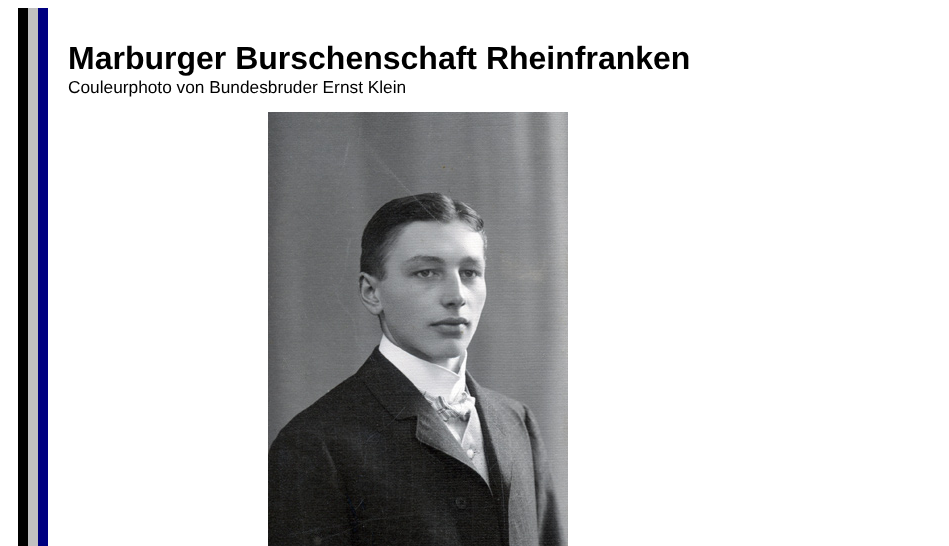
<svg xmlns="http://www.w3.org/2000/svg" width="949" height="546">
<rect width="100%" height="100%" fill="#fff"/>
<rect x="18" y="8" width="10" height="538" fill="#000"/>
<rect x="28" y="8" width="10" height="538" fill="#c0c0c0"/>
<rect x="38" y="8" width="10" height="538" fill="#000080"/>
<text x="68" y="69" style="font-family:Liberation Sans;font-size:32px;font-weight:bold;fill:#000">Marburger Burschenschaft Rheinfranken</text>
<text x="68" y="93" style="font-family:Liberation Sans;font-size:17.3px;fill:#000">Couleurphoto von Bundesbruder Ernst Klein</text>
<image x="268" y="112" width="300" height="434" href="media/1.png"/>
</svg>
